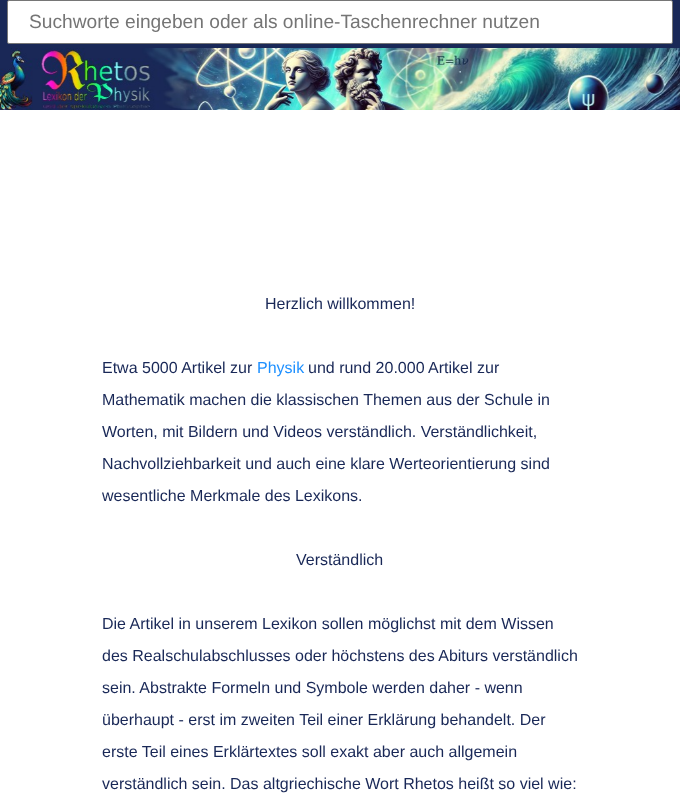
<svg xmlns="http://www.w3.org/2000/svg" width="680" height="799">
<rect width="100%" height="100%" fill="#fff"/>
<rect width="680" height="110" fill="#192857"/>
<rect x="7.5" y="0.5" width="665" height="43" rx="1.5" fill="#fff" stroke="#767676"/>
<text x="29" y="28" style="font-family:Liberation Sans;font-size:19.2px;fill:#757575">Suchworte eingeben oder als online-Taschenrechner nutzen</text>
<image x="0" y="48" width="680" height="62" href="media/1.png"/>
<text x="265" y="309" style="font-family:Liberation Sans;font-size:16px;fill:#192857">Herzlich willkommen!</text>
<text x="102" y="373" style="font-family:Liberation Sans;font-size:16px;fill:#192857">Etwa 5000 Artikel zur</text>
<text x="257" y="373" style="font-family:Liberation Sans;font-size:16px;fill:#1e90ff">Physik</text>
<text x="308" y="373" style="font-family:Liberation Sans;font-size:16px;fill:#192857">und rund 20.000 Artikel zur</text>
<text x="102" y="405" style="font-family:Liberation Sans;font-size:16px;fill:#192857">Mathematik machen die klassischen Themen aus der Schule in</text>
<text x="102" y="437" style="font-family:Liberation Sans;font-size:16px;fill:#192857">Worten, mit Bildern und Videos verständlich. Verständlichkeit,</text>
<text x="102" y="469" style="font-family:Liberation Sans;font-size:16px;fill:#192857">Nachvollziehbarkeit und auch eine klare Werteorientierung sind</text>
<text x="102" y="501" style="font-family:Liberation Sans;font-size:16px;fill:#192857">wesentliche Merkmale des Lexikons.</text>
<text x="296" y="565" style="font-family:Liberation Sans;font-size:16px;fill:#192857">Verständlich</text>
<text x="102" y="629" style="font-family:Liberation Sans;font-size:16px;fill:#192857">Die Artikel in unserem Lexikon sollen möglichst mit dem Wissen</text>
<text x="102" y="661" style="font-family:Liberation Sans;font-size:16px;fill:#192857">des Realschulabschlusses oder höchstens des Abiturs verständlich</text>
<text x="102" y="693" style="font-family:Liberation Sans;font-size:16px;fill:#192857">sein. Abstrakte Formeln und Symbole werden daher - wenn</text>
<text x="102" y="725" style="font-family:Liberation Sans;font-size:16px;fill:#192857">überhaupt - erst im zweiten Teil einer Erklärung behandelt. Der</text>
<text x="102" y="757" style="font-family:Liberation Sans;font-size:16px;fill:#192857">erste Teil eines Erklärtextes soll exakt aber auch allgemein</text>
<text x="102" y="789" style="font-family:Liberation Sans;font-size:16px;fill:#192857">verständlich sein. Das altgriechische Wort Rhetos heißt so viel wie:</text>
</svg>
